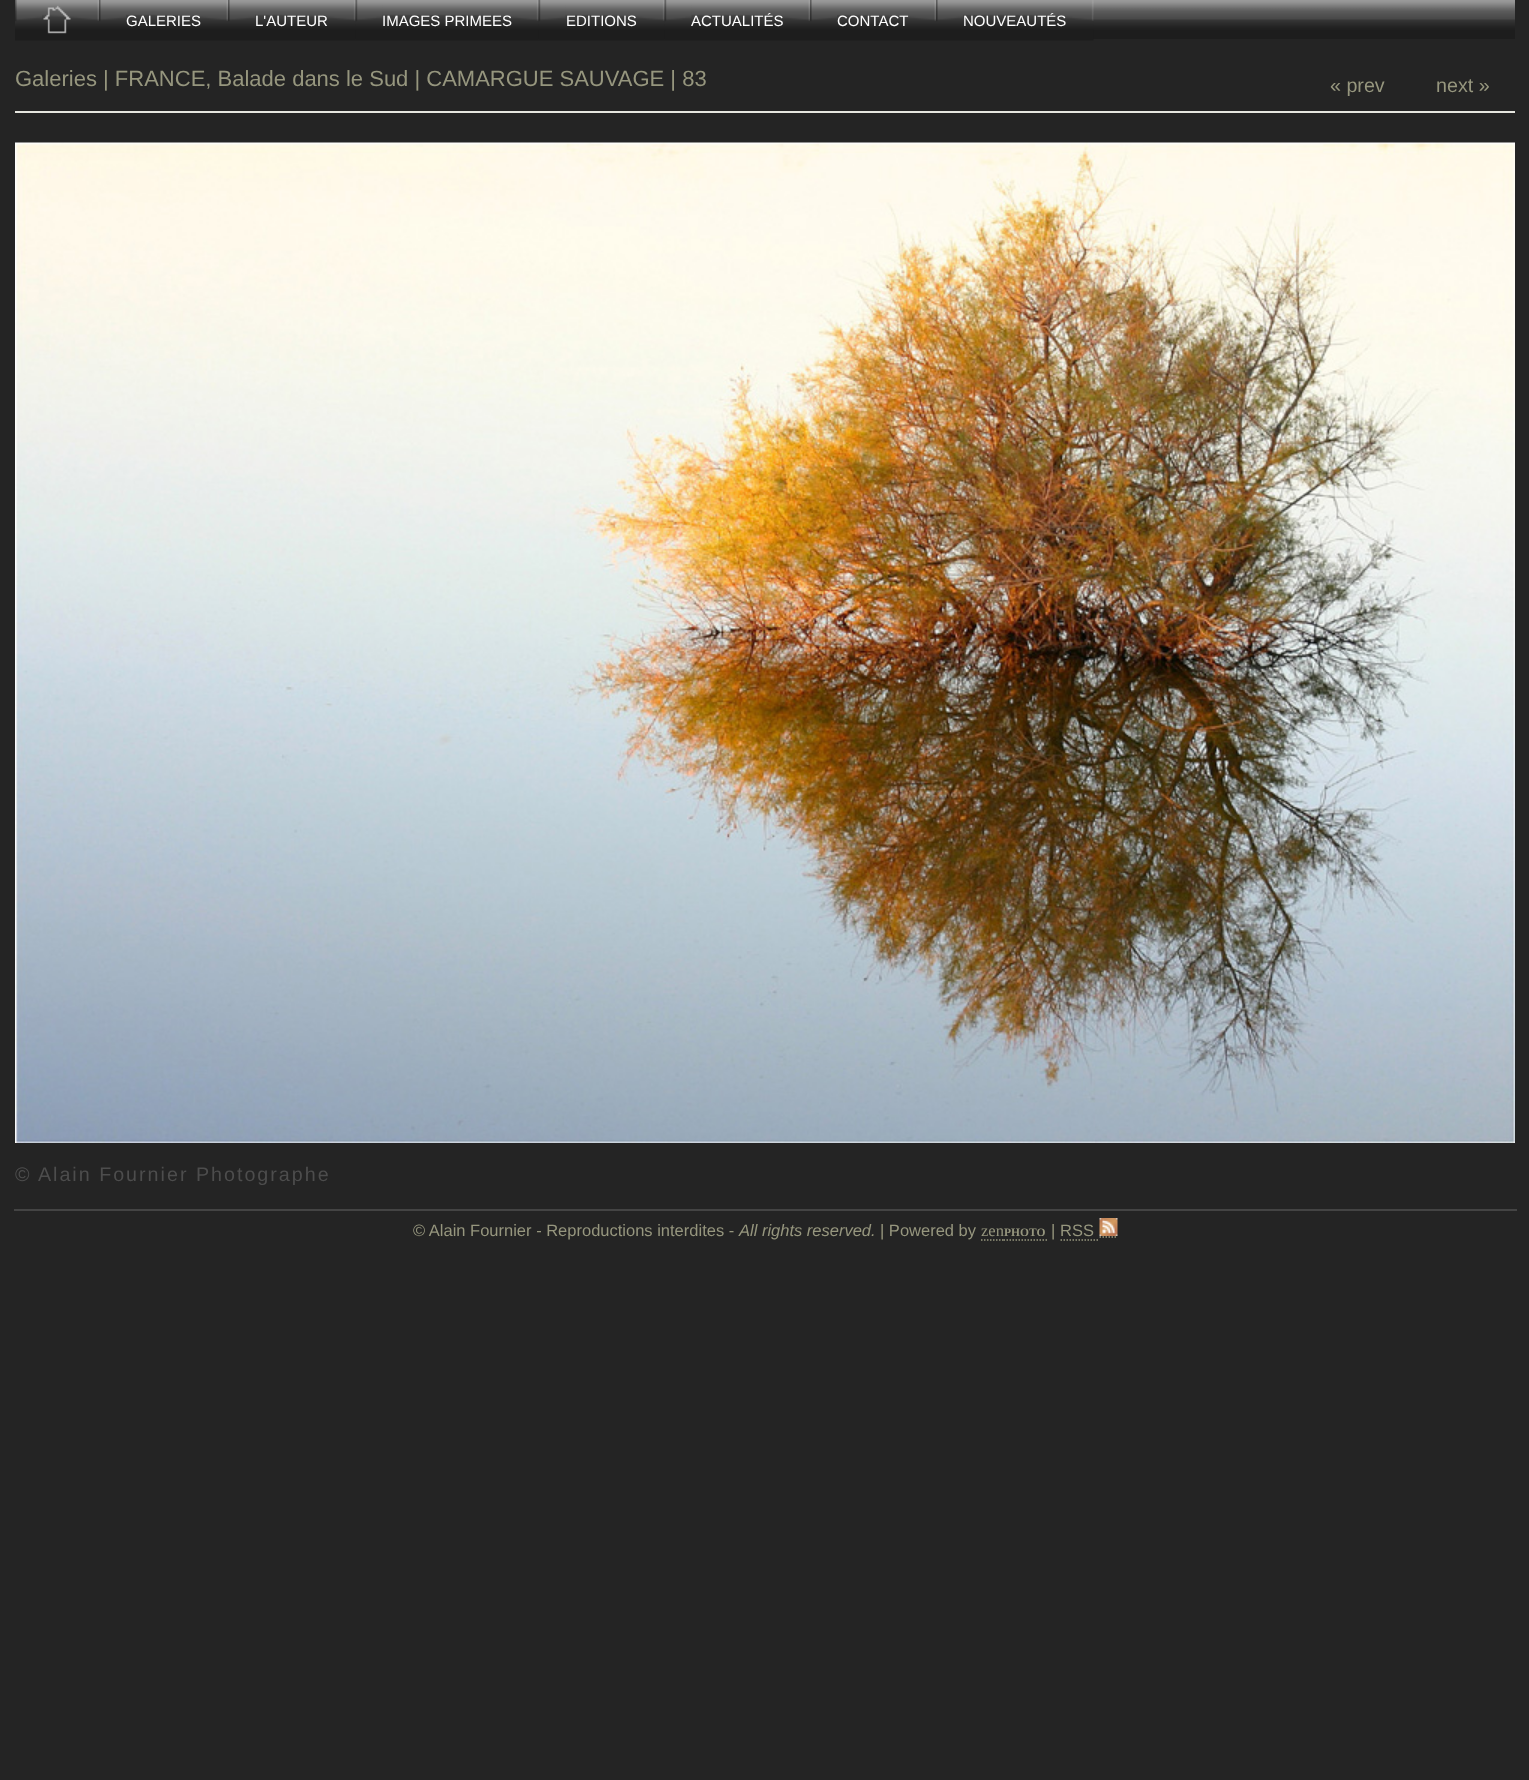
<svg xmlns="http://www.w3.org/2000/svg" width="1529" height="1780">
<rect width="100%" height="100%" fill="#242424"/>
<rect x="14" y="1209" width="1503" height="2" fill="#444"/>
<image x="355" y="0" width="1160" height="39" href="media/1.png"/>
<image x="15" y="0" width="84" height="41" href="media/2.png"/>
<image x="42" y="0" width="57" height="21" href="media/3.png"/>
<image x="43" y="5" width="28" height="29" href="media/4.png"/>
<image x="99" y="0" width="129" height="41" href="media/5.png"/>
<image x="126" y="0" width="102" height="21" href="media/6.png"/>
<text x="126" y="26" style="font-family:Liberation Sans;font-size:15px;fill:#fff">GALERIES</text>
<image x="228" y="0" width="128" height="41" href="media/7.png"/>
<image x="255" y="0" width="101" height="21" href="media/8.png"/>
<text x="255" y="26" style="font-family:Liberation Sans;font-size:15px;fill:#fff">L'AUTEUR</text>
<image x="355" y="0" width="184" height="41" href="media/9.png"/>
<image x="382" y="0" width="157" height="21" href="media/10.png"/>
<text x="382" y="26" style="font-family:Liberation Sans;font-size:15px;fill:#fff">IMAGES PRIMEES</text>
<image x="538" y="0" width="127" height="41" href="media/11.png"/>
<image x="565" y="0" width="100" height="21" href="media/12.png"/>
<text x="566" y="26" style="font-family:Liberation Sans;font-size:15px;fill:#fff">EDITIONS</text>
<image x="664" y="0" width="146" height="41" href="media/13.png"/>
<image x="691" y="0" width="119" height="21" href="media/14.png"/>
<text x="691" y="26" style="font-family:Liberation Sans;font-size:15px;fill:#fff">ACTUALITÉS</text>
<image x="810" y="0" width="126" height="41" href="media/15.png"/>
<image x="837" y="0" width="99" height="21" href="media/16.png"/>
<text x="837" y="26" style="font-family:Liberation Sans;font-size:15px;fill:#fff">CONTACT</text>
<image x="936" y="0" width="158" height="41" href="media/17.png"/>
<image x="963" y="0" width="131" height="21" href="media/18.png"/>
<text x="963" y="26" style="font-family:Liberation Sans;font-size:15px;fill:#fff">NOUVEAUTÉS</text>
<rect x="15" y="111" width="1500" height="2" fill="#e6e6df"/>
<text x="15" y="86" style="font-family:Liberation Sans;font-size:22px;fill:#96967e">Galeries | FRANCE, Balade dans le Sud | CAMARGUE SAUVAGE | 83</text>
<text x="1330" y="92" style="font-family:Liberation Sans;font-size:19.7px;fill:#96967e">« prev</text>
<text x="1436" y="92" style="font-family:Liberation Sans;font-size:19.7px;fill:#96967e">next »</text>
<image x="15" y="142" width="1500" height="1001" href="media/19.png"/>
<text x="15" y="1181" style="font-family:Liberation Sans;font-size:19.7px;letter-spacing:2px;fill:#4d4d4d">© Alain Fournier Photographe</text>
<text x="413" y="1236" style="font-family:Liberation Sans;font-size:16.5px;fill:#96967e">© Alain Fournier - Reproductions interdites -</text>
<text x="739" y="1236" style="font-family:Liberation Sans;font-size:16.5px;font-style:italic;fill:#96967e">All rights reserved.</text>
<text x="880" y="1236" style="font-family:Liberation Sans;font-size:16.5px;fill:#96967e">| Powered by</text>
<text x="981" y="1236" style="font-family:Liberation Serif;font-size:16.5px;fill:#96967e">zen</text>
<path d="M981 1240h22.5" fill="none" stroke="#96967e" stroke-width="1.5" stroke-dasharray="1.5 1.5"/>
<path d="M1003.5 1240h43.5" fill="none" stroke="#96967e" stroke-width="1.5" stroke-dasharray="1.5 1.5"/>
<text x="1004" y="1236" style="font-family:Liberation Serif;font-size:11.5px;font-weight:bold;fill:#96967e">PHOTO</text>
<text x="1051" y="1236" style="font-family:Liberation Sans;font-size:16.5px;fill:#96967e">|</text>
<path d="M1060.5 1240h39m0-3h18" fill="none" stroke="#96967e" stroke-width="1.5" stroke-dasharray="1.5 1.5"/>
<text x="1060" y="1236" style="font-family:Liberation Sans;font-size:16.5px;fill:#96967e">RSS</text>
<image x="1099" y="1218" width="19" height="18" href="media/20.png"/>
</svg>
